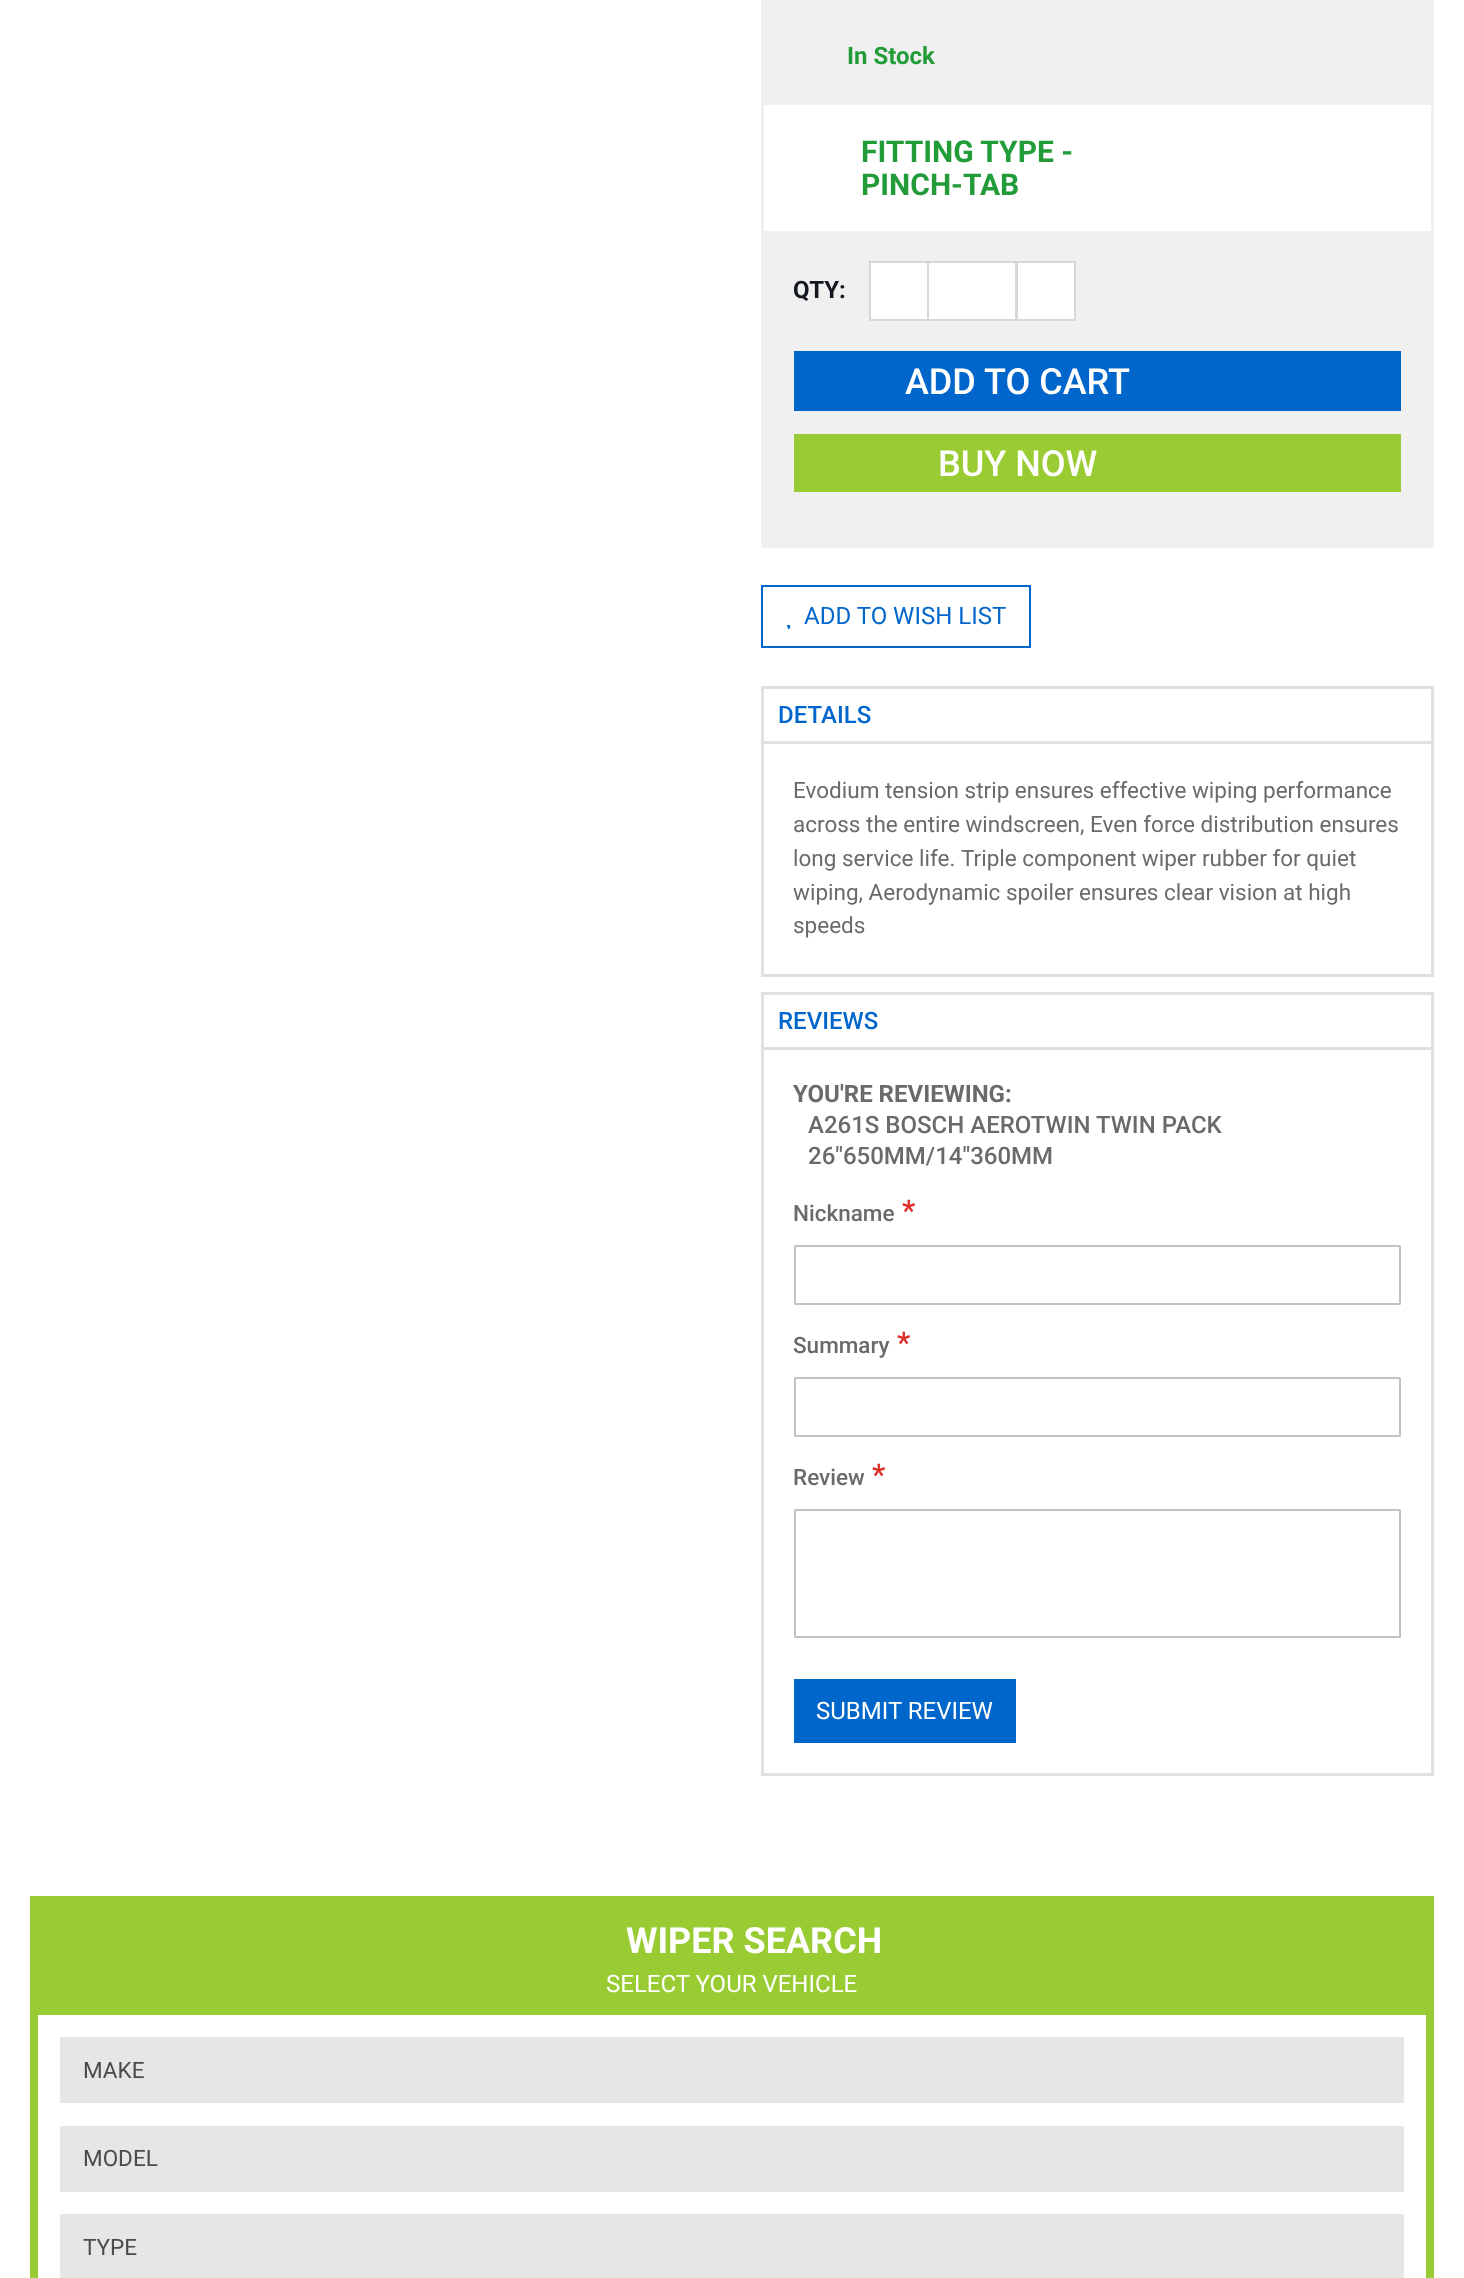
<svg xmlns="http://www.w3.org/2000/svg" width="1464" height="2278">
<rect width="100%" height="100%" fill="#fff"/>
<rect x="761" width="673" height="548" fill="#f0f0f0"/>
<text x="847" y="64" style="font-family:Roboto;font-size:24px;font-weight:bold;fill:#229b39">In Stock</text>
<rect x="764" y="105" width="667" height="126" fill="#fff"/>
<text x="861" y="162" style="font-family:Roboto;font-size:30px;font-weight:bold;fill:#229b39">FITTING TYPE -</text>
<text x="861" y="195" style="font-family:Roboto;font-size:30px;font-weight:bold;fill:#229b39">PINCH-TAB</text>
<text x="793" y="298" style="font-family:Roboto;font-size:24px;font-weight:bold;fill:#141920">QTY:</text>
<rect x="870" y="262" width="58" height="58" fill="#fff" stroke="#d7d7d7" stroke-width="2"/>
<rect x="928" y="262" width="88" height="58" rx="0.5" fill="#fff" stroke="#d7d7d7" stroke-width="2"/>
<rect x="1017" y="262" width="58" height="58" fill="#fff" stroke="#d7d7d7" stroke-width="2"/>
<rect x="794" y="351" width="607" height="60" fill="#0066cb"/>
<text x="905" y="394" style="font-family:Roboto;font-size:36px;font-weight:500;fill:#fff">ADD TO CART</text>
<rect x="794" y="434" width="607" height="58" fill="#9c3"/>
<text x="938" y="476" style="font-family:Roboto;font-size:36px;font-weight:500;fill:#fff">BUY NOW</text>
<rect x="762" y="586" width="268" height="61" fill="none" stroke="#06c" stroke-width="2"/>
<text x="804" y="624" style="font-family:Roboto;font-size:24px;fill:#06c">ADD TO WISH LIST</text>
<image x="787" y="624" width="4" height="5" href="media/1.png"/>
<rect x="762.5" y="687.5" width="670" height="55" fill="none" stroke="#e0e0e0" stroke-width="3"/>
<text x="778" y="723" style="font-family:Roboto;font-size:24px;font-weight:500;fill:#06c">DETAILS</text>
<rect x="1431" y="744" width="3" height="233" fill="#e0e0e0"/>
<rect x="761" y="974" width="673" height="3" fill="#e0e0e0"/>
<rect x="761" y="744" width="3" height="233" fill="#e0e0e0"/>
<text x="793" y="798" style="font-family:Roboto;font-size:22.5px;fill:#6a6b69">Evodium tension strip ensures effective wiping performance</text>
<text x="793" y="832" style="font-family:Roboto;font-size:22.5px;fill:#6a6b69">across the entire windscreen, Even force distribution ensures</text>
<text x="793" y="866" style="font-family:Roboto;font-size:22.5px;fill:#6a6b69">long service life.</text>
<text x="961" y="866" style="font-family:Roboto;font-size:22.5px;fill:#6a6b69">Triple component wiper rubber for quiet</text>
<text x="793" y="900" style="font-family:Roboto;font-size:22.5px;fill:#6a6b69">wiping, Aerodynamic spoiler ensures clear vision at high</text>
<text x="793" y="933" style="font-family:Roboto;font-size:22.5px;fill:#6a6b69">speeds</text>
<rect x="762.5" y="993.5" width="670" height="55" fill="none" stroke="#e0e0e0" stroke-width="3"/>
<text x="778" y="1029" style="font-family:Roboto;font-size:24px;font-weight:500;fill:#06c">REVIEWS</text>
<rect x="1431" y="1050" width="3" height="726" fill="#e0e0e0"/>
<rect x="761" y="1773" width="673" height="3" fill="#e0e0e0"/>
<rect x="761" y="1050" width="3" height="726" fill="#e0e0e0"/>
<text x="793" y="1102" style="font-family:Roboto;font-size:24px;font-weight:bold;fill:#6a6b69">YOU'RE REVIEWING:</text>
<text x="808" y="1133" style="font-family:Roboto;font-size:24px;font-weight:500;fill:#6a6b69">A261S BOSCH AEROTWIN TWIN PACK</text>
<text x="808" y="1164" style="font-family:Roboto;font-size:24px;font-weight:500;fill:#6a6b69">26"650MM/14"360MM</text>
<text x="793" y="1221" style="font-family:Roboto;font-size:22.5px;font-weight:500;fill:#6a6b69">Nickname</text>
<text x="902" y="1221" style="font-family:Roboto;font-size:30px;font-weight:500;fill:#e02b27">*</text>
<rect x="795" y="1246" width="605" height="58" rx="0.5" fill="none" stroke="#c2c2c2" stroke-width="2"/>
<text x="793" y="1353" style="font-family:Roboto;font-size:22.5px;font-weight:500;fill:#6a6b69">Summary</text>
<text x="897" y="1353" style="font-family:Roboto;font-size:30px;font-weight:500;fill:#e02b27">*</text>
<rect x="795" y="1378" width="605" height="58" rx="0.5" fill="none" stroke="#c2c2c2" stroke-width="2"/>
<text x="793" y="1485" style="font-family:Roboto;font-size:22.5px;font-weight:500;fill:#6a6b69">Review</text>
<text x="872" y="1485" style="font-family:Roboto;font-size:30px;font-weight:500;fill:#e02b27">*</text>
<rect x="795" y="1510" width="605" height="127" rx="0.5" fill="none" stroke="#c2c2c2" stroke-width="2"/>
<rect x="794" y="1679" width="222" height="64" fill="#0066cb"/>
<text x="816" y="1719" style="font-family:Roboto;font-size:24px;fill:#fff">SUBMIT REVIEW</text>
<rect x="34" y="1900" width="1396" height="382" fill="none" stroke="#9c3" stroke-width="8"/>
<rect x="38" y="1904" width="1388" height="111" fill="#9c3"/>
<text x="626" y="1953" style="font-family:Roboto;font-size:36px;font-weight:bold;fill:#fff">WIPER SEARCH</text>
<text x="606" y="1992" style="font-family:Roboto;font-size:24px;fill:#fff">SELECT YOUR VEHICLE</text>
<rect x="60" y="2037" width="1344" height="66" fill="#e6e6e6"/>
<text x="83" y="2078" style="font-family:Roboto;font-size:22.5px;fill:#4b4b4b">MAKE</text>
<rect x="60" y="2126" width="1344" height="66" fill="#e6e6e6"/>
<text x="83" y="2166" style="font-family:Roboto;font-size:22.5px;fill:#4b4b4b">MODEL</text>
<rect x="60" y="2214" width="1344" height="64" fill="#e6e6e6"/>
<text x="83" y="2255" style="font-family:Roboto;font-size:22.5px;fill:#4b4b4b">TYPE</text>
</svg>
